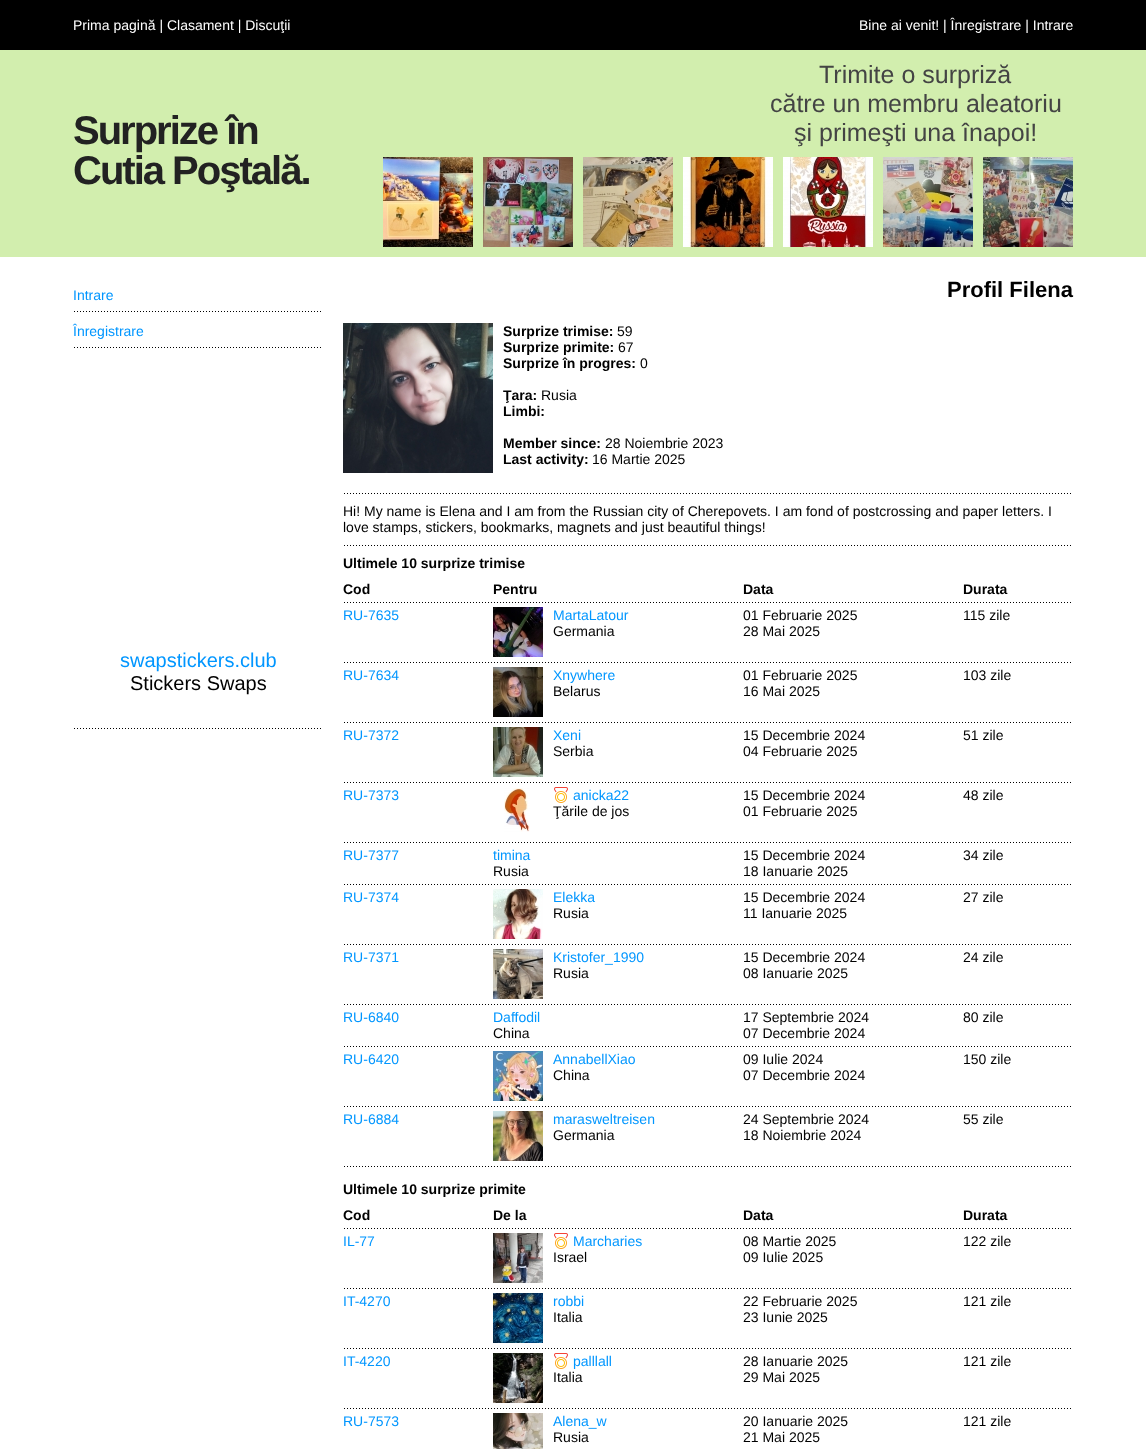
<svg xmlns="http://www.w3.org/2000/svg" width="1146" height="1449">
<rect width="100%" height="100%" fill="#fff"/>
<rect width="1146" height="50" fill="#000"/>
<text x="73" y="30" style="font-family:Liberation Sans;font-size:14px;fill:#fff">Prima pagină | Clasament | Discuţii</text>
<text x="859" y="30" style="font-family:Liberation Sans;font-size:14px;fill:#fff">Bine ai venit! | Înregistrare | Intrare</text>
<rect y="50" width="1146" height="207" fill="#d2eeae"/>
<text x="73" y="144" style="font-family:Liberation Sans;font-size:40px;font-weight:bold;letter-spacing:-2px;fill:#222">Surprize în</text>
<text x="73" y="184" style="font-family:Liberation Sans;font-size:40px;font-weight:bold;letter-spacing:-2px;fill:#222">Cutia Poştală.</text>
<text x="819" y="83" style="font-family:Liberation Sans;font-size:25px;fill:#444">Trimite o surpriză</text>
<text x="770" y="112" style="font-family:Liberation Sans;font-size:25px;fill:#444">către un membru aleatoriu</text>
<text x="794" y="141" style="font-family:Liberation Sans;font-size:25px;fill:#444">şi primeşti una înapoi!</text>
<image x="383" y="157" width="90" height="90" href="media/1.png"/>
<image x="483" y="157" width="90" height="90" href="media/2.png"/>
<image x="583" y="157" width="90" height="90" href="media/3.png"/>
<image x="683" y="157" width="90" height="90" href="media/4.png"/>
<image x="783" y="157" width="90" height="90" href="media/5.png"/>
<image x="883" y="157" width="90" height="90" href="media/6.png"/>
<image x="983" y="157" width="90" height="90" href="media/7.png"/>
<image x="74" y="311" width="247" height="1" href="media/8.png"/>
<text x="73" y="300" style="font-family:Liberation Sans;font-size:14px;fill:#0096ff">Intrare</text>
<image x="74" y="347" width="247" height="1" href="media/8.png"/>
<text x="73" y="336" style="font-family:Liberation Sans;font-size:14px;fill:#0096ff">Înregistrare</text>
<text x="120" y="667" style="font-family:Liberation Sans;font-size:20px;fill:#0096ff">swapstickers.club</text>
<text x="130" y="690" style="font-family:Liberation Sans;font-size:20px;fill:#000">Stickers Swaps</text>
<image x="74" y="728" width="247" height="1" href="media/8.png"/>
<text x="947" y="297" style="font-family:Liberation Sans;font-size:22px;font-weight:bold;fill:#000">Profil Filena</text>
<image x="343" y="323" width="150" height="150" href="media/9.png"/>
<text x="503" y="336" style="font-family:Liberation Sans;font-size:14px;font-weight:bold;fill:#000">Surprize trimise:</text>
<text x="617" y="336" style="font-family:Liberation Sans;font-size:14px;fill:#000">59</text>
<text x="503" y="352" style="font-family:Liberation Sans;font-size:14px;font-weight:bold;fill:#000">Surprize primite:</text>
<text x="618" y="352" style="font-family:Liberation Sans;font-size:14px;fill:#000">67</text>
<text x="503" y="368" style="font-family:Liberation Sans;font-size:14px;font-weight:bold;fill:#000">Surprize în progres:</text>
<text x="640" y="368" style="font-family:Liberation Sans;font-size:14px;fill:#000">0</text>
<text x="503" y="400" style="font-family:Liberation Sans;font-size:14px;font-weight:bold;fill:#000">Ţara:</text>
<text x="541" y="400" style="font-family:Liberation Sans;font-size:14px;fill:#000">Rusia</text>
<text x="503" y="416" style="font-family:Liberation Sans;font-size:14px;font-weight:bold;fill:#000">Limbi:</text>
<text x="503" y="448" style="font-family:Liberation Sans;font-size:14px;font-weight:bold;fill:#000">Member since:</text>
<text x="605" y="448" style="font-family:Liberation Sans;font-size:14px;fill:#000">28 Noiembrie 2023</text>
<text x="503" y="464" style="font-family:Liberation Sans;font-size:14px;font-weight:bold;fill:#000">Last activity:</text>
<text x="592" y="464" style="font-family:Liberation Sans;font-size:14px;fill:#000">16 Martie 2025</text>
<image x="344" y="493" width="727" height="1" href="media/10.png"/>
<text x="343" y="516" style="font-family:Liberation Sans;font-size:14px;fill:#000">Hi! My name is Elena and I am from the Russian city of Cherepovets. I am fond of postcrossing and paper letters. I</text>
<text x="343" y="532" style="font-family:Liberation Sans;font-size:14px;fill:#000">love stamps, stickers, bookmarks, magnets and just beautiful things!</text>
<image x="344" y="545" width="727" height="1" href="media/10.png"/>
<text x="343" y="568" style="font-family:Liberation Sans;font-size:14px;font-weight:bold;fill:#000">Ultimele 10 surprize trimise</text>
<text x="343" y="594" style="font-family:Liberation Sans;font-size:14px;font-weight:bold;fill:#000">Cod</text>
<text x="493" y="594" style="font-family:Liberation Sans;font-size:14px;font-weight:bold;fill:#000">Pentru</text>
<text x="743" y="594" style="font-family:Liberation Sans;font-size:14px;font-weight:bold;fill:#000">Data</text>
<text x="963" y="594" style="font-family:Liberation Sans;font-size:14px;font-weight:bold;fill:#000">Durata</text>
<image x="344" y="602" width="727" height="1" href="media/10.png"/>
<text x="343" y="620" style="font-family:Liberation Sans;font-size:14px;fill:#0096ff">RU-7635</text>
<image x="493" y="607" width="50" height="50" href="media/11.png"/>
<text x="553" y="620" style="font-family:Liberation Sans;font-size:14px;fill:#0096ff">MartaLatour</text>
<text x="553" y="636" style="font-family:Liberation Sans;font-size:14px;fill:#000">Germania</text>
<text x="743" y="620" style="font-family:Liberation Sans;font-size:14px;fill:#000">01 Februarie 2025</text>
<text x="743" y="636" style="font-family:Liberation Sans;font-size:14px;fill:#000">28 Mai 2025</text>
<text x="963" y="620" style="font-family:Liberation Sans;font-size:14px;fill:#000">115 zile</text>
<image x="344" y="662" width="727" height="1" href="media/10.png"/>
<text x="343" y="680" style="font-family:Liberation Sans;font-size:14px;fill:#0096ff">RU-7634</text>
<image x="493" y="667" width="50" height="50" href="media/12.png"/>
<text x="553" y="680" style="font-family:Liberation Sans;font-size:14px;fill:#0096ff">Xnywhere</text>
<text x="553" y="696" style="font-family:Liberation Sans;font-size:14px;fill:#000">Belarus</text>
<text x="743" y="680" style="font-family:Liberation Sans;font-size:14px;fill:#000">01 Februarie 2025</text>
<text x="743" y="696" style="font-family:Liberation Sans;font-size:14px;fill:#000">16 Mai 2025</text>
<text x="963" y="680" style="font-family:Liberation Sans;font-size:14px;fill:#000">103 zile</text>
<image x="344" y="722" width="727" height="1" href="media/10.png"/>
<text x="343" y="740" style="font-family:Liberation Sans;font-size:14px;fill:#0096ff">RU-7372</text>
<image x="493" y="727" width="50" height="50" href="media/13.png"/>
<text x="553" y="740" style="font-family:Liberation Sans;font-size:14px;fill:#0096ff">Xeni</text>
<text x="553" y="756" style="font-family:Liberation Sans;font-size:14px;fill:#000">Serbia</text>
<text x="743" y="740" style="font-family:Liberation Sans;font-size:14px;fill:#000">15 Decembrie 2024</text>
<text x="743" y="756" style="font-family:Liberation Sans;font-size:14px;fill:#000">04 Februarie 2025</text>
<text x="963" y="740" style="font-family:Liberation Sans;font-size:14px;fill:#000">51 zile</text>
<image x="344" y="782" width="727" height="1" href="media/10.png"/>
<text x="343" y="800" style="font-family:Liberation Sans;font-size:14px;fill:#0096ff">RU-7373</text>
<image x="504" y="788" width="26" height="44" href="media/14.png"/>
<image x="554" y="787" width="14" height="16" href="media/15.png"/>
<text x="573" y="800" style="font-family:Liberation Sans;font-size:14px;fill:#0096ff">anicka22</text>
<text x="553" y="816" style="font-family:Liberation Sans;font-size:14px;fill:#000">Ţările de jos</text>
<text x="743" y="800" style="font-family:Liberation Sans;font-size:14px;fill:#000">15 Decembrie 2024</text>
<text x="743" y="816" style="font-family:Liberation Sans;font-size:14px;fill:#000">01 Februarie 2025</text>
<text x="963" y="800" style="font-family:Liberation Sans;font-size:14px;fill:#000">48 zile</text>
<image x="344" y="842" width="727" height="1" href="media/10.png"/>
<text x="343" y="860" style="font-family:Liberation Sans;font-size:14px;fill:#0096ff">RU-7377</text>
<text x="493" y="860" style="font-family:Liberation Sans;font-size:14px;fill:#0096ff">timina</text>
<text x="493" y="876" style="font-family:Liberation Sans;font-size:14px;fill:#000">Rusia</text>
<text x="743" y="860" style="font-family:Liberation Sans;font-size:14px;fill:#000">15 Decembrie 2024</text>
<text x="743" y="876" style="font-family:Liberation Sans;font-size:14px;fill:#000">18 Ianuarie 2025</text>
<text x="963" y="860" style="font-family:Liberation Sans;font-size:14px;fill:#000">34 zile</text>
<image x="344" y="884" width="727" height="1" href="media/10.png"/>
<text x="343" y="902" style="font-family:Liberation Sans;font-size:14px;fill:#0096ff">RU-7374</text>
<image x="493" y="889" width="50" height="50" href="media/16.png"/>
<text x="553" y="902" style="font-family:Liberation Sans;font-size:14px;fill:#0096ff">Elekka</text>
<text x="553" y="918" style="font-family:Liberation Sans;font-size:14px;fill:#000">Rusia</text>
<text x="743" y="902" style="font-family:Liberation Sans;font-size:14px;fill:#000">15 Decembrie 2024</text>
<text x="743" y="918" style="font-family:Liberation Sans;font-size:14px;fill:#000">11 Ianuarie 2025</text>
<text x="963" y="902" style="font-family:Liberation Sans;font-size:14px;fill:#000">27 zile</text>
<image x="344" y="944" width="727" height="1" href="media/10.png"/>
<text x="343" y="962" style="font-family:Liberation Sans;font-size:14px;fill:#0096ff">RU-7371</text>
<image x="493" y="949" width="50" height="50" href="media/17.png"/>
<text x="553" y="962" style="font-family:Liberation Sans;font-size:14px;fill:#0096ff">Kristofer_1990</text>
<text x="553" y="978" style="font-family:Liberation Sans;font-size:14px;fill:#000">Rusia</text>
<text x="743" y="962" style="font-family:Liberation Sans;font-size:14px;fill:#000">15 Decembrie 2024</text>
<text x="743" y="978" style="font-family:Liberation Sans;font-size:14px;fill:#000">08 Ianuarie 2025</text>
<text x="963" y="962" style="font-family:Liberation Sans;font-size:14px;fill:#000">24 zile</text>
<image x="344" y="1004" width="727" height="1" href="media/10.png"/>
<text x="343" y="1022" style="font-family:Liberation Sans;font-size:14px;fill:#0096ff">RU-6840</text>
<text x="493" y="1022" style="font-family:Liberation Sans;font-size:14px;fill:#0096ff">Daffodil</text>
<text x="493" y="1038" style="font-family:Liberation Sans;font-size:14px;fill:#000">China</text>
<text x="743" y="1022" style="font-family:Liberation Sans;font-size:14px;fill:#000">17 Septembrie 2024</text>
<text x="743" y="1038" style="font-family:Liberation Sans;font-size:14px;fill:#000">07 Decembrie 2024</text>
<text x="963" y="1022" style="font-family:Liberation Sans;font-size:14px;fill:#000">80 zile</text>
<image x="344" y="1046" width="727" height="1" href="media/10.png"/>
<text x="343" y="1064" style="font-family:Liberation Sans;font-size:14px;fill:#0096ff">RU-6420</text>
<image x="493" y="1051" width="50" height="50" href="media/18.png"/>
<text x="553" y="1064" style="font-family:Liberation Sans;font-size:14px;fill:#0096ff">AnnabellXiao</text>
<text x="553" y="1080" style="font-family:Liberation Sans;font-size:14px;fill:#000">China</text>
<text x="743" y="1064" style="font-family:Liberation Sans;font-size:14px;fill:#000">09 Iulie 2024</text>
<text x="743" y="1080" style="font-family:Liberation Sans;font-size:14px;fill:#000">07 Decembrie 2024</text>
<text x="963" y="1064" style="font-family:Liberation Sans;font-size:14px;fill:#000">150 zile</text>
<image x="344" y="1106" width="727" height="1" href="media/10.png"/>
<text x="343" y="1124" style="font-family:Liberation Sans;font-size:14px;fill:#0096ff">RU-6884</text>
<image x="493" y="1111" width="50" height="50" href="media/19.png"/>
<text x="553" y="1124" style="font-family:Liberation Sans;font-size:14px;fill:#0096ff">marasweltreisen</text>
<text x="553" y="1140" style="font-family:Liberation Sans;font-size:14px;fill:#000">Germania</text>
<text x="743" y="1124" style="font-family:Liberation Sans;font-size:14px;fill:#000">24 Septembrie 2024</text>
<text x="743" y="1140" style="font-family:Liberation Sans;font-size:14px;fill:#000">18 Noiembrie 2024</text>
<text x="963" y="1124" style="font-family:Liberation Sans;font-size:14px;fill:#000">55 zile</text>
<image x="344" y="1166" width="727" height="1" href="media/10.png"/>
<text x="343" y="1194" style="font-family:Liberation Sans;font-size:14px;font-weight:bold;fill:#000">Ultimele 10 surprize primite</text>
<text x="343" y="1220" style="font-family:Liberation Sans;font-size:14px;font-weight:bold;fill:#000">Cod</text>
<text x="493" y="1220" style="font-family:Liberation Sans;font-size:14px;font-weight:bold;fill:#000">De la</text>
<text x="743" y="1220" style="font-family:Liberation Sans;font-size:14px;font-weight:bold;fill:#000">Data</text>
<text x="963" y="1220" style="font-family:Liberation Sans;font-size:14px;font-weight:bold;fill:#000">Durata</text>
<image x="344" y="1228" width="727" height="1" href="media/10.png"/>
<text x="343" y="1246" style="font-family:Liberation Sans;font-size:14px;fill:#0096ff">IL-77</text>
<image x="493" y="1233" width="50" height="50" href="media/20.png"/>
<image x="554" y="1233" width="14" height="16" href="media/15.png"/>
<text x="573" y="1246" style="font-family:Liberation Sans;font-size:14px;fill:#0096ff">Marcharies</text>
<text x="553" y="1262" style="font-family:Liberation Sans;font-size:14px;fill:#000">Israel</text>
<text x="743" y="1246" style="font-family:Liberation Sans;font-size:14px;fill:#000">08 Martie 2025</text>
<text x="743" y="1262" style="font-family:Liberation Sans;font-size:14px;fill:#000">09 Iulie 2025</text>
<text x="963" y="1246" style="font-family:Liberation Sans;font-size:14px;fill:#000">122 zile</text>
<image x="344" y="1288" width="727" height="1" href="media/10.png"/>
<text x="343" y="1306" style="font-family:Liberation Sans;font-size:14px;fill:#0096ff">IT-4270</text>
<image x="493" y="1293" width="50" height="50" href="media/21.png"/>
<text x="553" y="1306" style="font-family:Liberation Sans;font-size:14px;fill:#0096ff">robbi</text>
<text x="553" y="1322" style="font-family:Liberation Sans;font-size:14px;fill:#000">Italia</text>
<text x="743" y="1306" style="font-family:Liberation Sans;font-size:14px;fill:#000">22 Februarie 2025</text>
<text x="743" y="1322" style="font-family:Liberation Sans;font-size:14px;fill:#000">23 Iunie 2025</text>
<text x="963" y="1306" style="font-family:Liberation Sans;font-size:14px;fill:#000">121 zile</text>
<image x="344" y="1348" width="727" height="1" href="media/10.png"/>
<text x="343" y="1366" style="font-family:Liberation Sans;font-size:14px;fill:#0096ff">IT-4220</text>
<image x="493" y="1353" width="50" height="50" href="media/22.png"/>
<image x="554" y="1353" width="14" height="16" href="media/15.png"/>
<text x="573" y="1366" style="font-family:Liberation Sans;font-size:14px;fill:#0096ff">palllall</text>
<text x="553" y="1382" style="font-family:Liberation Sans;font-size:14px;fill:#000">Italia</text>
<text x="743" y="1366" style="font-family:Liberation Sans;font-size:14px;fill:#000">28 Ianuarie 2025</text>
<text x="743" y="1382" style="font-family:Liberation Sans;font-size:14px;fill:#000">29 Mai 2025</text>
<text x="963" y="1366" style="font-family:Liberation Sans;font-size:14px;fill:#000">121 zile</text>
<image x="344" y="1408" width="727" height="1" href="media/10.png"/>
<text x="343" y="1426" style="font-family:Liberation Sans;font-size:14px;fill:#0096ff">RU-7573</text>
<image x="493" y="1413" width="50" height="36" href="media/23.png"/>
<text x="553" y="1426" style="font-family:Liberation Sans;font-size:14px;fill:#0096ff">Alena_w</text>
<text x="553" y="1442" style="font-family:Liberation Sans;font-size:14px;fill:#000">Rusia</text>
<text x="743" y="1426" style="font-family:Liberation Sans;font-size:14px;fill:#000">20 Ianuarie 2025</text>
<text x="743" y="1442" style="font-family:Liberation Sans;font-size:14px;fill:#000">21 Mai 2025</text>
<text x="963" y="1426" style="font-family:Liberation Sans;font-size:14px;fill:#000">121 zile</text>
</svg>
